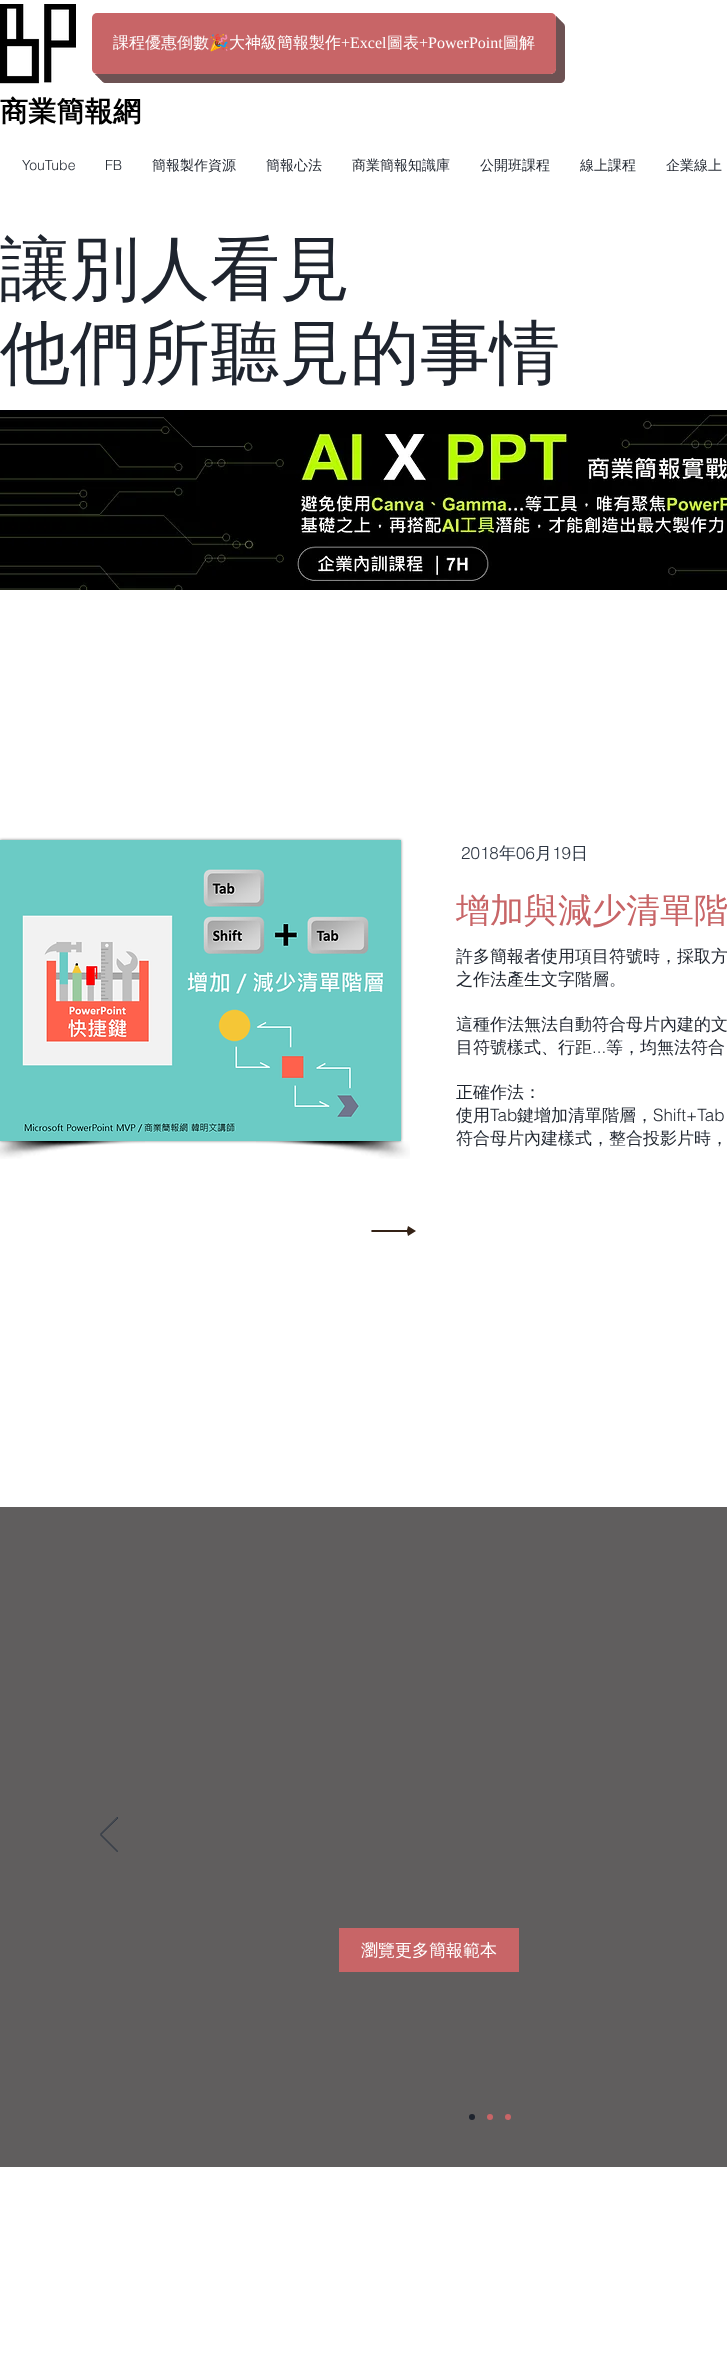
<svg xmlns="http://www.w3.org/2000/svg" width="727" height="2369">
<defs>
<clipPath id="clip1"><rect x="100" y="1817" width="18" height="36"/></clipPath>
</defs>
<rect width="100%" height="100%" fill="#fff"/>
<image x="0" y="4" width="76" height="80" href="media/1.png"/>
<path d="M101 74v4c0 3 2 5 5 5h454c3 0 5-2 5-5v-51c0-3-2-5-5-5h-4v47c0 3-2 5-5 5z" fill="#6d5253"/>
<path d="M99 74v2c0 3 2 5 5 5h454c3 0 5-2 5-5v-51c0-3-2-5-5-5h-2v49c0 3-2 5-5 5z" fill="#6d5253"/>
<path d="M97 74c0 3 2 5 5 5h454c3 0 5-2 5-5v-51c0-3-2-5-5-5v51c0 3-2 5-5 5z" fill="#6d5253"/>
<path d="M95 74c1 2 3 3 5 3h454c3 0 5-2 5-5v-51c0-2-1-4-3-5v44c0 4 2 14-5 14z" fill="#6d5253"/>
<path d="M94 73c1 1 2 2 4 2h454c3 0 5-2 5-5v-51c0-2-1-3-2-4c1 1 1 2 1 3v51c0 3-2 5-5 5h-454c-1 0-2 0-3-1z" fill="#6d5253"/>
<rect x="92" y="13" width="464" height="61" rx="5" fill="#c86567"/>
<text x="113" y="48" style="font-family:WenQuanYi Zen Hei;font-size:16px;font-weight:500;fill:#fff">課程優惠倒數</text>
<text x="209" y="48" style="font-family:Noto Color Emoji;font-size:16px;fill:#fff">🎉</text>
<text x="229" y="48" style="font-family:WenQuanYi Zen Hei;font-size:16px;font-weight:500;fill:#fff">大神級簡報製作</text>
<text x="341" y="48" style="font-family:Liberation Serif;font-size:16px;fill:#fff">+Excel</text>
<text x="387" y="48" style="font-family:WenQuanYi Zen Hei;font-size:16px;font-weight:500;fill:#fff">圖表</text>
<text x="419" y="48" style="font-family:Liberation Serif;font-size:16px;fill:#fff">+PowerPoint</text>
<text x="503" y="48" style="font-family:WenQuanYi Zen Hei;font-size:16px;font-weight:500;fill:#fff">圖解</text>
<text x="0" y="121" style="font-family:WenQuanYi Zen Hei;font-size:28px;font-weight:bold;letter-spacing:0.25px;fill:#000">商業簡報網</text>
<text x="22" y="170" style="font-family:helvetica;font-size:14px;font-weight:300;fill:#1e242e">YouTube</text>
<text x="105" y="170" style="font-family:helvetica;font-size:14px;font-weight:300;fill:#1e242e">FB</text>
<text x="152" y="170" style="font-family:WenQuanYi Zen Hei;font-size:14px;font-weight:500;fill:#1e242e">簡報製作資源</text>
<text x="266" y="170" style="font-family:WenQuanYi Zen Hei;font-size:14px;font-weight:500;fill:#1e242e">簡報心法</text>
<text x="352" y="170" style="font-family:WenQuanYi Zen Hei;font-size:14px;font-weight:500;fill:#1e242e">商業簡報知識庫</text>
<text x="480" y="170" style="font-family:WenQuanYi Zen Hei;font-size:14px;font-weight:500;fill:#1e242e">公開班課程</text>
<text x="580" y="170" style="font-family:WenQuanYi Zen Hei;font-size:14px;font-weight:500;fill:#1e242e">線上課程</text>
<text x="666" y="170" style="font-family:WenQuanYi Zen Hei;font-size:14px;font-weight:500;fill:#1e242e">企業線上</text>
<text x="0" y="293" style="font-family:WenQuanYi Zen Hei;font-size:70px;font-weight:500;fill:#1e242e">讓別人看見</text>
<text x="0" y="377" style="font-family:WenQuanYi Zen Hei;font-size:70px;font-weight:500;fill:#1e242e">他們所聽見的事情</text>
<image x="0" y="410" width="727" height="180" href="media/2.png"/>
<rect y="840" width="401" height="301" fill="#00000080" filter="blur(1.5px)"/>
<image x="0" y="840" width="401" height="301" href="media/3.png"/>
<image x="0" y="1141" width="145" height="18" href="media/4.png"/>
<image x="256" y="1141" width="154" height="18" href="media/5.png"/>
<text x="461" y="859" style="font-family:helvetica;font-size:17px;font-weight:300;fill:#2d3643">2018</text>
<text x="499" y="859" style="font-family:WenQuanYi Zen Hei;font-size:17px;font-weight:500;fill:#2d3643">年</text>
<text x="516" y="859" style="font-family:helvetica;font-size:17px;font-weight:300;fill:#2d3643">06</text>
<text x="535" y="859" style="font-family:WenQuanYi Zen Hei;font-size:17px;font-weight:500;fill:#2d3643">月</text>
<text x="552" y="859" style="font-family:helvetica;font-size:17px;font-weight:300;fill:#2d3643">19</text>
<text x="571" y="859" style="font-family:WenQuanYi Zen Hei;font-size:17px;font-weight:500;fill:#2d3643">日</text>
<text x="456" y="922" style="font-family:WenQuanYi Zen Hei;font-size:34px;font-weight:500;fill:#c86567">增加與減少清單階</text>
<text x="456" y="962" style="font-family:WenQuanYi Zen Hei;font-size:17px;font-weight:500;fill:#1e242e">許多簡報者使用項目符號時，採取方</text>
<text x="456" y="985" style="font-family:WenQuanYi Zen Hei;font-size:17px;font-weight:500;fill:#1e242e">之作法產生文字階層。</text>
<text x="456" y="1030" style="font-family:WenQuanYi Zen Hei;font-size:17px;font-weight:500;fill:#1e242e">這種作法無法自動符合母片內建的文</text>
<text x="456" y="1053" style="font-family:WenQuanYi Zen Hei;font-size:17px;font-weight:500;fill:#1e242e">目符號樣式、行距</text>
<text x="592" y="1053" style="font-family:helvetica;font-size:17px;font-weight:300;fill:#1e242e">...</text>
<text x="606" y="1053" style="font-family:WenQuanYi Zen Hei;font-size:17px;font-weight:500;fill:#1e242e">等，均無法符合</text>
<text x="456" y="1098" style="font-family:WenQuanYi Zen Hei;font-size:17px;font-weight:500;fill:#1e242e">正確作法：</text>
<text x="456" y="1121" style="font-family:WenQuanYi Zen Hei;font-size:17px;font-weight:500;fill:#1e242e">使用</text>
<text x="490" y="1121" style="font-family:helvetica;font-size:17px;font-weight:300;fill:#1e242e">Tab</text>
<text x="517" y="1121" style="font-family:WenQuanYi Zen Hei;font-size:17px;font-weight:500;fill:#1e242e">鍵增加清單階層，</text>
<text x="653" y="1121" style="font-family:helvetica;font-size:17px;font-weight:300;fill:#1e242e">Shift+Tab</text>
<text x="456" y="1144" style="font-family:WenQuanYi Zen Hei;font-size:17px;font-weight:500;fill:#1e242e">符合母片內建樣式，整合投影片時，</text>
<path d="M372 1232h35l1 4l8-5l-8-5l-1 4h-35c-1 0-1 2 0 2z" fill="#342216"/>
<rect y="1507" width="727" height="660" fill="#605e5e"/>
<g clip-path="url(#clip1)">
<path d="M117.5 1852l-17.5-17.5l17.5-17.5l.5 1l-17 16.5l17 17z" fill="none" stroke="#2d3643" stroke-width="0.9"/>
</g>
<rect x="339" y="1928" width="180" height="44" fill="#c86567"/>
<text x="361" y="1956" style="font-family:WenQuanYi Zen Hei;font-size:17px;font-weight:500;fill:#fff">瀏覽更多簡報範本</text>
<circle cx="472" cy="2117" r="3" fill="#1e242e"/>
<circle cx="490" cy="2117" r="3" fill="#c86567"/>
<circle cx="508" cy="2117" r="3" fill="#c86567"/>
</svg>
